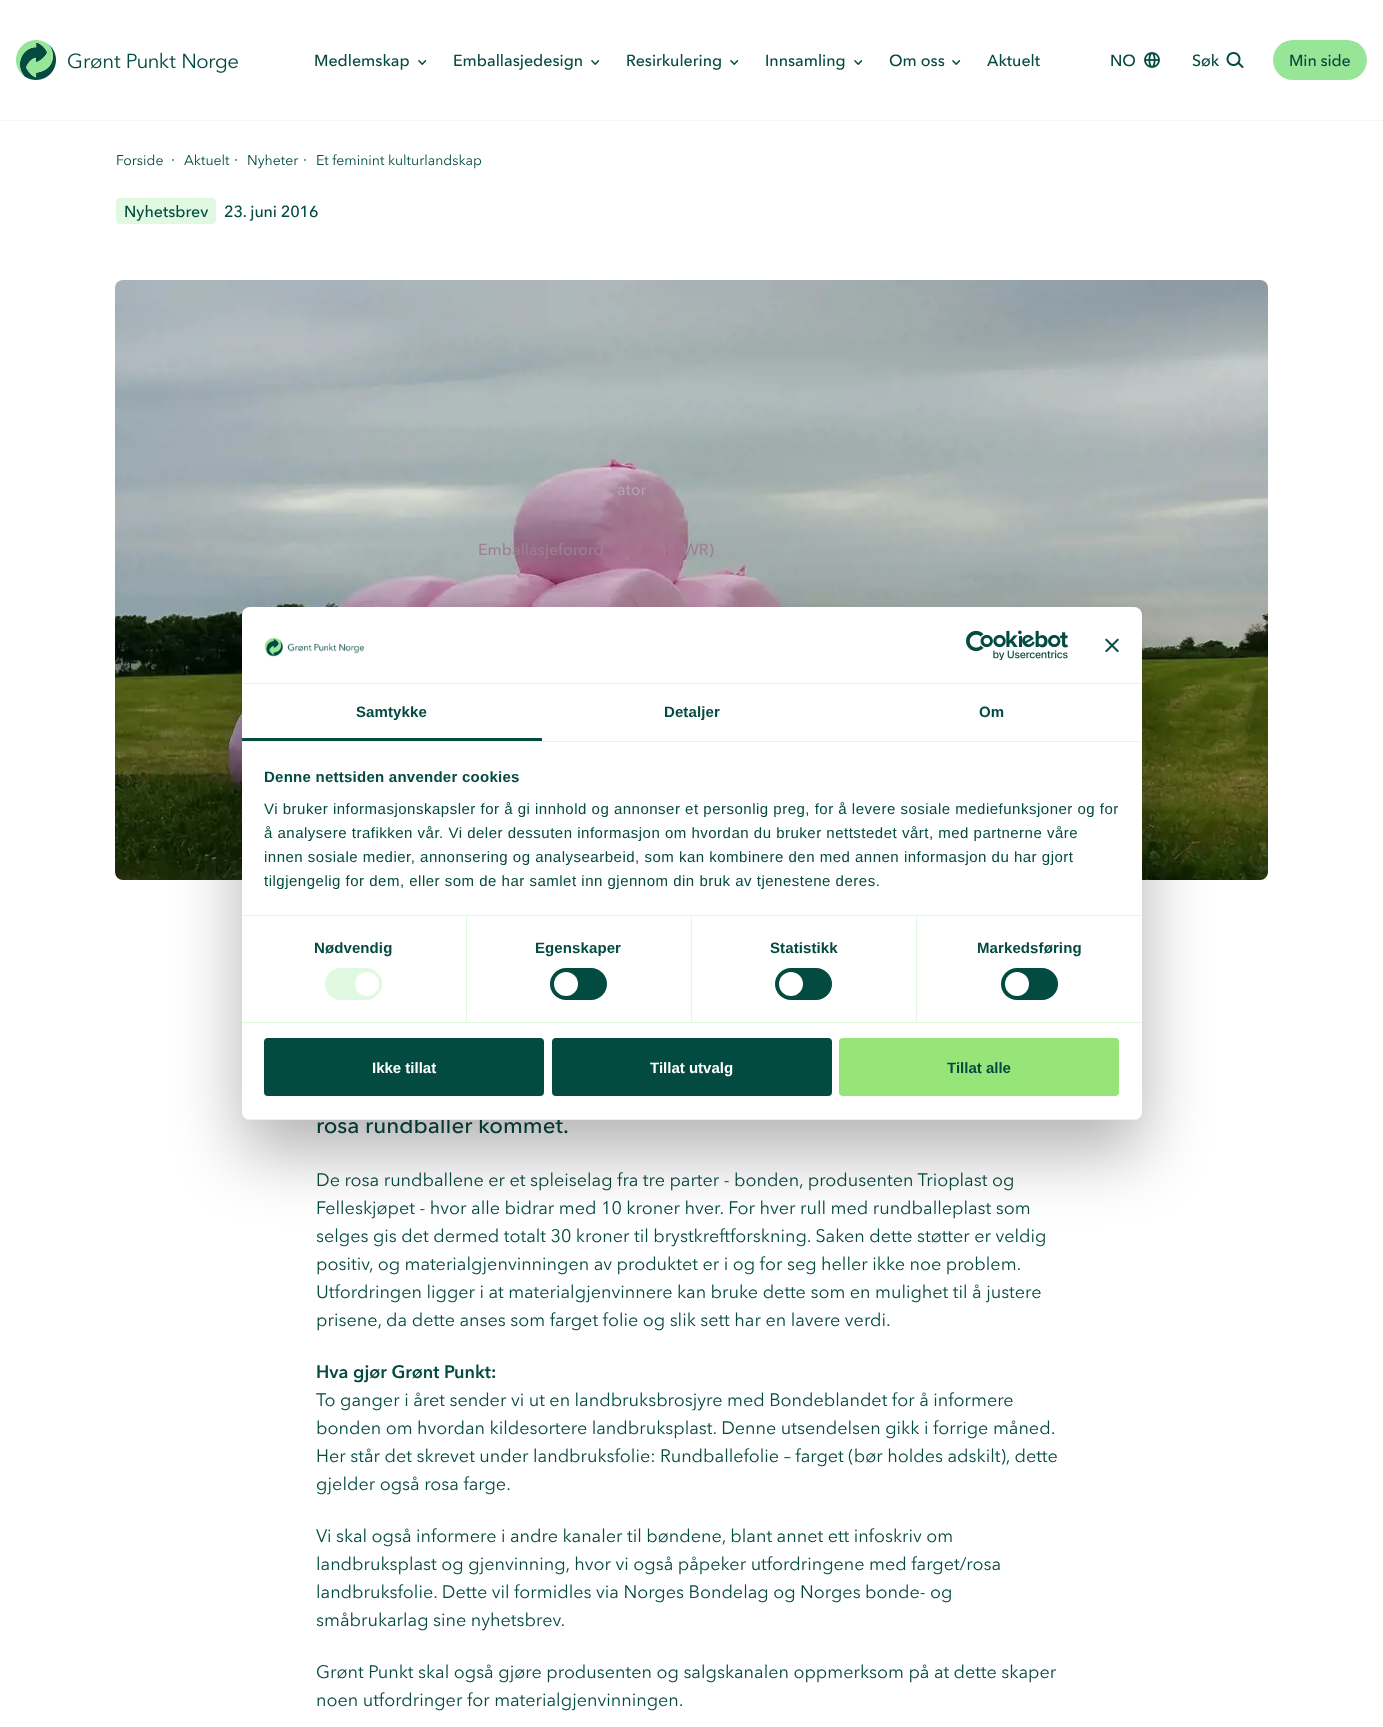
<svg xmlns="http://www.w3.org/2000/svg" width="1383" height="1727">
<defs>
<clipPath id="clip1"><rect x="242" y="607" width="900" height="513" rx="8"/></clipPath>
</defs>
<rect width="100%" height="100%" fill="#fff"/>
<rect y="120" width="1383" height="1" fill="#f6f6f6"/>
<image x="16" y="40" width="222" height="40" href="media/1.png"/>
<text x="314" y="66" style="font-family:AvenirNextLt;font-size:16px;font-weight:500;fill:#034a41">Medlemskap</text>
<image x="418" y="60" width="9" height="5" href="media/2.png"/>
<text x="453" y="66" style="font-family:AvenirNextLt;font-size:16px;font-weight:500;fill:#034a41">Emballasjedesign</text>
<image x="591" y="60" width="9" height="5" href="media/2.png"/>
<image x="115" y="280" width="1153" height="600" href="media/5.png"/>
<text x="617" y="495" style="font-family:AvenirNextLt;font-size:16px;font-weight:500;fill:#b5a3b1">ator</text>
<text x="478" y="555" style="font-family:AvenirNextLt;font-size:16px;font-weight:500;fill:#9f7f93">Emballasjeforord</text>
<text x="683" y="555" style="font-family:AvenirNextLt;font-size:16px;font-weight:500;fill:#9f7f93">WR)</text>
<text x="626" y="66" style="font-family:AvenirNextLt;font-size:16px;font-weight:500;fill:#034a41">Resirkulering</text>
<image x="730" y="60" width="9" height="5" href="media/2.png"/>
<text x="765" y="66" style="font-family:AvenirNextLt;font-size:16px;font-weight:500;fill:#034a41">Innsamling</text>
<image x="854" y="60" width="9" height="5" href="media/2.png"/>
<text x="889" y="66" style="font-family:AvenirNextLt;font-size:16px;font-weight:500;fill:#034a41">Om oss</text>
<image x="952" y="60" width="9" height="5" href="media/2.png"/>
<text x="987" y="66" style="font-family:AvenirNextLt;font-size:16px;font-weight:500;fill:#034a41">Aktuelt</text>
<text x="1110" y="66" style="font-family:AvenirNextLt;font-size:16px;font-weight:500;letter-spacing:-0.1px;fill:#034a41">NO</text>
<image x="1144" y="52" width="16" height="16" href="media/3.png"/>
<text x="1192" y="66" style="font-family:AvenirNextLt;font-size:16px;font-weight:500;letter-spacing:-0.1px;fill:#034a41">Søk</text>
<image x="1226" y="52" width="18" height="16" href="media/4.png"/>
<rect x="1273" y="40" width="94" height="40" rx="20" fill="#97e597"/>
<text x="1289" y="66" style="font-family:AvenirNextLt;font-size:16px;font-weight:500;letter-spacing:-0.1px;fill:#034a41">Min side</text>
<text x="116" y="165" style="font-family:AvenirNextLt;font-size:14px;fill:#034a41">Forside</text>
<text x="171" y="165" style="font-family:AvenirNextLt;font-size:16px;fill:#034a41">·</text>
<text x="184" y="165" style="font-family:AvenirNextLt;font-size:14px;fill:#034a41">Aktuelt</text>
<text x="234" y="165" style="font-family:AvenirNextLt;font-size:16px;fill:#034a41">·</text>
<text x="247" y="165" style="font-family:AvenirNextLt;font-size:14px;fill:#034a41">Nyheter</text>
<text x="303" y="165" style="font-family:AvenirNextLt;font-size:16px;fill:#034a41">·</text>
<text x="316" y="165" style="font-family:AvenirNextLt;font-size:14px;fill:#034a41">Et feminint kulturlandskap</text>
<rect x="116" y="198" width="100" height="26" rx="4" fill="#e0f9e0"/>
<text x="124" y="217" style="font-family:AvenirNextLt;font-size:16px;font-weight:500;fill:#034a41">Nyhetsbrev</text>
<text x="224" y="217" style="font-family:AvenirNextLt;font-size:16px;font-weight:500;letter-spacing:-0.1px;fill:#034a41">23. juni 2016</text>
<text x="316" y="1133" style="font-family:AvenirNextLt;font-size:22.4px;font-weight:500;fill:#034a41">rosa rundballer kommet.</text>
<text x="316" y="1186" style="font-family:AvenirNextLt;font-size:18px;fill:#034a41">De rosa rundballene er et spleiselag fra tre parter - bonden, produsenten Trioplast og</text>
<text x="316" y="1214" style="font-family:AvenirNextLt;font-size:18px;fill:#034a41">Felleskjøpet - hvor alle bidrar med 10 kroner hver. For hver rull med rundballeplast som</text>
<text x="316" y="1242" style="font-family:AvenirNextLt;font-size:18px;fill:#034a41">selges gis det dermed totalt 30 kroner til brystkreftforskning. Saken dette støtter er veldig</text>
<text x="316" y="1270" style="font-family:AvenirNextLt;font-size:18px;fill:#034a41">positiv, og materialgjenvinningen av produktet er i og for seg heller ikke noe problem.</text>
<text x="316" y="1298" style="font-family:AvenirNextLt;font-size:18px;fill:#034a41">Utfordringen ligger i at materialgjenvinnere kan bruke dette som en mulighet til å justere</text>
<text x="316" y="1326" style="font-family:AvenirNextLt;font-size:18px;fill:#034a41">prisene, da dette anses som farget folie og slik sett har en lavere verdi.</text>
<text x="316" y="1378" style="font-family:AvenirNextLt;font-size:18px;font-weight:bold;fill:#034a41">Hva gjør Grønt Punkt:</text>
<text x="316" y="1406" style="font-family:AvenirNextLt;font-size:18px;fill:#034a41">To ganger i året sender vi ut en landbruksbrosjyre med Bondeblandet for å informere</text>
<text x="316" y="1434" style="font-family:AvenirNextLt;font-size:18px;fill:#034a41">bonden om hvordan kildesortere landbruksplast. Denne utsendelsen gikk i forrige måned.</text>
<text x="316" y="1462" style="font-family:AvenirNextLt;font-size:18px;fill:#034a41">Her står det skrevet under landbruksfolie: Rundballefolie – farget (bør holdes adskilt), dette</text>
<text x="316" y="1490" style="font-family:AvenirNextLt;font-size:18px;fill:#034a41">gjelder også rosa farge.</text>
<text x="316" y="1542" style="font-family:AvenirNextLt;font-size:18px;fill:#034a41">Vi skal også informere i andre kanaler til bøndene, blant annet ett infoskriv om</text>
<text x="316" y="1570" style="font-family:AvenirNextLt;font-size:18px;fill:#034a41">landbruksplast og gjenvinning, hvor vi også påpeker utfordringene med farget/rosa</text>
<text x="316" y="1598" style="font-family:AvenirNextLt;font-size:18px;fill:#034a41">landbruksfolie. Dette vil formidles via Norges Bondelag og Norges bonde- og</text>
<text x="316" y="1626" style="font-family:AvenirNextLt;font-size:18px;fill:#034a41">småbrukarlag sine nyhetsbrev.</text>
<text x="316" y="1678" style="font-family:AvenirNextLt;font-size:18px;fill:#034a41">Grønt Punkt skal også gjøre produsenten og salgskanalen oppmerksom på at dette skaper</text>
<text x="316" y="1706" style="font-family:AvenirNextLt;font-size:18px;fill:#034a41">noen utfordringer for materialgjenvinningen.</text>
<rect x="242" y="639" width="900" height="513" rx="8" fill="#0000004d" filter="blur(34px)"/>
<rect x="242" y="607" width="900" height="513" rx="8" fill="#fff"/>
<rect x="242" y="683" width="900" height="1" fill="#e0f9e0"/>
<image x="264" y="637" width="100" height="20" href="media/6.png"/>
<image x="966" y="630" width="102" height="30" href="media/7.png"/>
<image x="1105" y="638" width="14" height="14" href="media/8.png"/>
<rect x="242" y="741" width="900" height="1" fill="#e0f9e0"/>
<rect x="242" y="738" width="300" height="3" fill="#034a41"/>
<text x="356" y="717" style="font-family:Liberation Sans;font-size:15px;font-weight:bold;letter-spacing:0.1px;fill:#034a41">Samtykke</text>
<text x="664" y="717" style="font-family:Liberation Sans;font-size:15px;font-weight:bold;letter-spacing:0.1px;fill:#034a41">Detaljer</text>
<text x="979" y="717" style="font-family:Liberation Sans;font-size:15px;font-weight:bold;letter-spacing:0.1px;fill:#034a41">Om</text>
<rect x="242" y="915" width="900" height="1" fill="#e0f9e0"/>
<text x="264" y="782" style="font-family:Liberation Sans;font-size:15px;font-weight:bold;letter-spacing:0.25px;fill:#034a41">Denne nettsiden anvender cookies</text>
<text x="264" y="814" style="font-family:Liberation Sans;font-size:15px;letter-spacing:0.5px;fill:#034a41">Vi bruker informasjonskapsler for å gi innhold og annonser et personlig preg, for å levere sosiale mediefunksjoner og for</text>
<text x="264" y="838" style="font-family:Liberation Sans;font-size:15px;letter-spacing:0.5px;fill:#034a41">å analysere trafikken vår. Vi deler dessuten informasjon om hvordan du bruker nettstedet vårt, med partnerne våre</text>
<text x="264" y="862" style="font-family:Liberation Sans;font-size:15px;letter-spacing:0.5px;fill:#034a41">innen sosiale medier, annonsering og analysearbeid, som kan kombinere den med annen informasjon du har gjort</text>
<text x="264" y="886" style="font-family:Liberation Sans;font-size:15px;letter-spacing:0.5px;fill:#034a41">tilgjengelig for dem, eller som de har samlet inn gjennom din bruk av tjenestene deres.</text>
<rect x="242" y="1022" width="900" height="1" fill="#e0f9e0"/>
<rect x="466" y="916" width="1" height="106" fill="#e0f9e0"/>
<text x="314" y="953" style="font-family:Liberation Sans;font-size:15px;font-weight:bold;letter-spacing:0.1px;fill:#034a41">Nødvendig</text>
<rect x="325" y="968" width="57" height="32" rx="16" fill="#e0f9e0"/>
<circle cx="367" cy="984" r="12" fill="#fff"/>
<rect x="691" y="916" width="1" height="106" fill="#e0f9e0"/>
<text x="535" y="953" style="font-family:Liberation Sans;font-size:15px;font-weight:bold;letter-spacing:0.1px;fill:#034a41">Egenskaper</text>
<rect x="550" y="968" width="57" height="32" rx="16" fill="#034a41"/>
<circle cx="566" cy="984" r="12" fill="#fff"/>
<rect x="916" y="916" width="1" height="106" fill="#e0f9e0"/>
<text x="770" y="953" style="font-family:Liberation Sans;font-size:15px;font-weight:bold;letter-spacing:0.1px;fill:#034a41">Statistikk</text>
<rect x="775" y="968" width="57" height="32" rx="16" fill="#034a41"/>
<circle cx="791" cy="984" r="12" fill="#fff"/>
<text x="977" y="953" style="font-family:Liberation Sans;font-size:15px;font-weight:bold;letter-spacing:0.1px;fill:#034a41">Markedsføring</text>
<rect x="1001" y="968" width="57" height="32" rx="16" fill="#034a41"/>
<circle cx="1017" cy="984" r="12" fill="#fff"/>
<g clip-path="url(#clip1)">
<rect x="242" y="1119" width="900" height="1" fill="#e0f9e0"/>
</g>
<rect x="265" y="1039" width="278" height="56" rx="3" fill="#034a41" stroke="#034a41" stroke-width="2"/>
<text x="372" y="1073" style="font-family:Liberation Sans;font-size:15px;font-weight:bold;fill:#fff">Ikke tillat</text>
<rect x="553" y="1039" width="278" height="56" rx="3" fill="#034a41" stroke="#034a41" stroke-width="2"/>
<text x="650" y="1073" style="font-family:Liberation Sans;font-size:15px;font-weight:bold;fill:#fff">Tillat utvalg</text>
<rect x="840" y="1039" width="278" height="56" rx="3" fill="#97e579" stroke="#97e579" stroke-width="2"/>
<text x="947" y="1073" style="font-family:Liberation Sans;font-size:15px;font-weight:bold;fill:#034a41">Tillat alle</text>
</svg>
